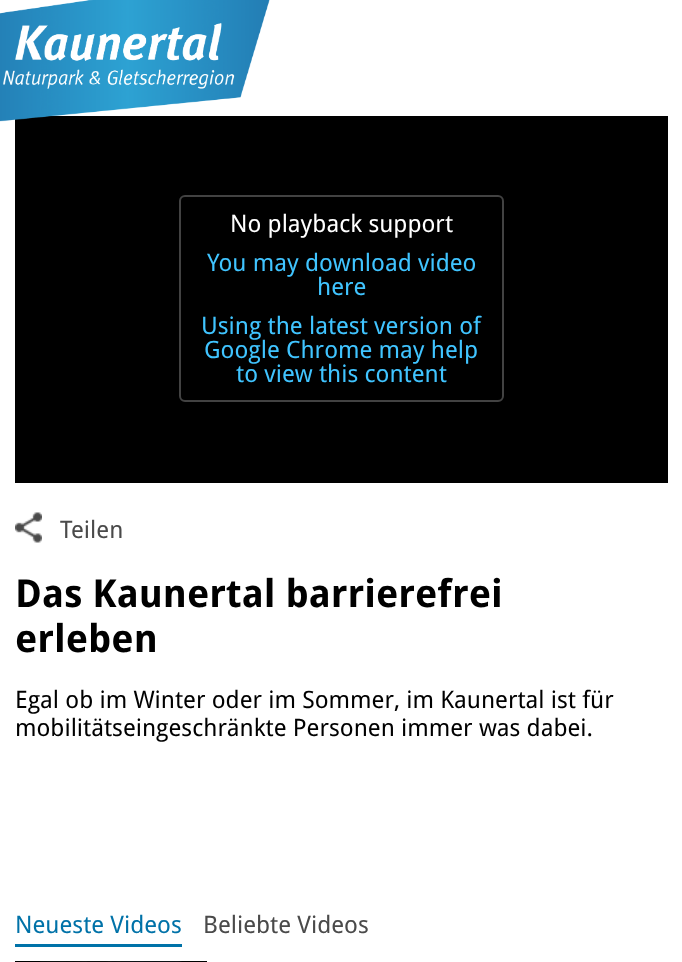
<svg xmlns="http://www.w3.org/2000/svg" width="682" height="962">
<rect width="100%" height="100%" fill="#fff"/>
<rect x="15" y="116" width="653" height="367" fill="#000"/>
<image x="0" y="0" width="270" height="122" href="media/1.png"/>
<rect x="180" y="196" width="323" height="205" rx="5" fill="none" stroke="#424242" stroke-width="2"/>
<text x="230" y="232" style="font-family:Droid Sans;font-size:24px;fill:#fff">No playback support</text>
<text x="207" y="271" style="font-family:Droid Sans;font-size:24px;fill:#40c4ff">You may download video</text>
<text x="317" y="295" style="font-family:Droid Sans;font-size:24px;fill:#40c4ff">here</text>
<text x="201" y="334" style="font-family:Droid Sans;font-size:24px;fill:#40c4ff">Using the latest version of</text>
<text x="204" y="358" style="font-family:Droid Sans;font-size:24px;fill:#40c4ff">Google Chrome may help</text>
<text x="236" y="382" style="font-family:Droid Sans;font-size:24px;fill:#40c4ff">to view this content</text>
<image x="15" y="512" width="27" height="31" href="media/2.png"/>
<text x="60" y="538" style="font-family:Droid Sans;font-size:24px;fill:#4a4a4a">Teilen</text>
<text x="15" y="607" style="font-family:Droid Sans;font-size:38.4px;font-weight:bold;fill:#000">Das Kaunertal barrierefrei</text>
<text x="15" y="652" style="font-family:Droid Sans;font-size:38.4px;font-weight:bold;fill:#000">erleben</text>
<text x="15" y="708" style="font-family:Droid Sans;font-size:24px;fill:#000">Egal ob im Winter oder im Sommer, im Kaunertal ist für</text>
<text x="15" y="736" style="font-family:Droid Sans;font-size:24px;fill:#000">mobilitätseingeschränkte Personen immer was dabei.</text>
<rect x="15" y="944" width="167" height="3" fill="#0072a8"/>
<text x="15" y="933" style="font-family:Droid Sans;font-size:24px;fill:#0072a8">Neueste Videos</text>
<text x="203" y="933" style="font-family:Droid Sans;font-size:24px;fill:#4a4a4a">Beliebte Videos</text>
<image x="15" y="961" width="192" height="1" href="media/3.png"/>
</svg>
